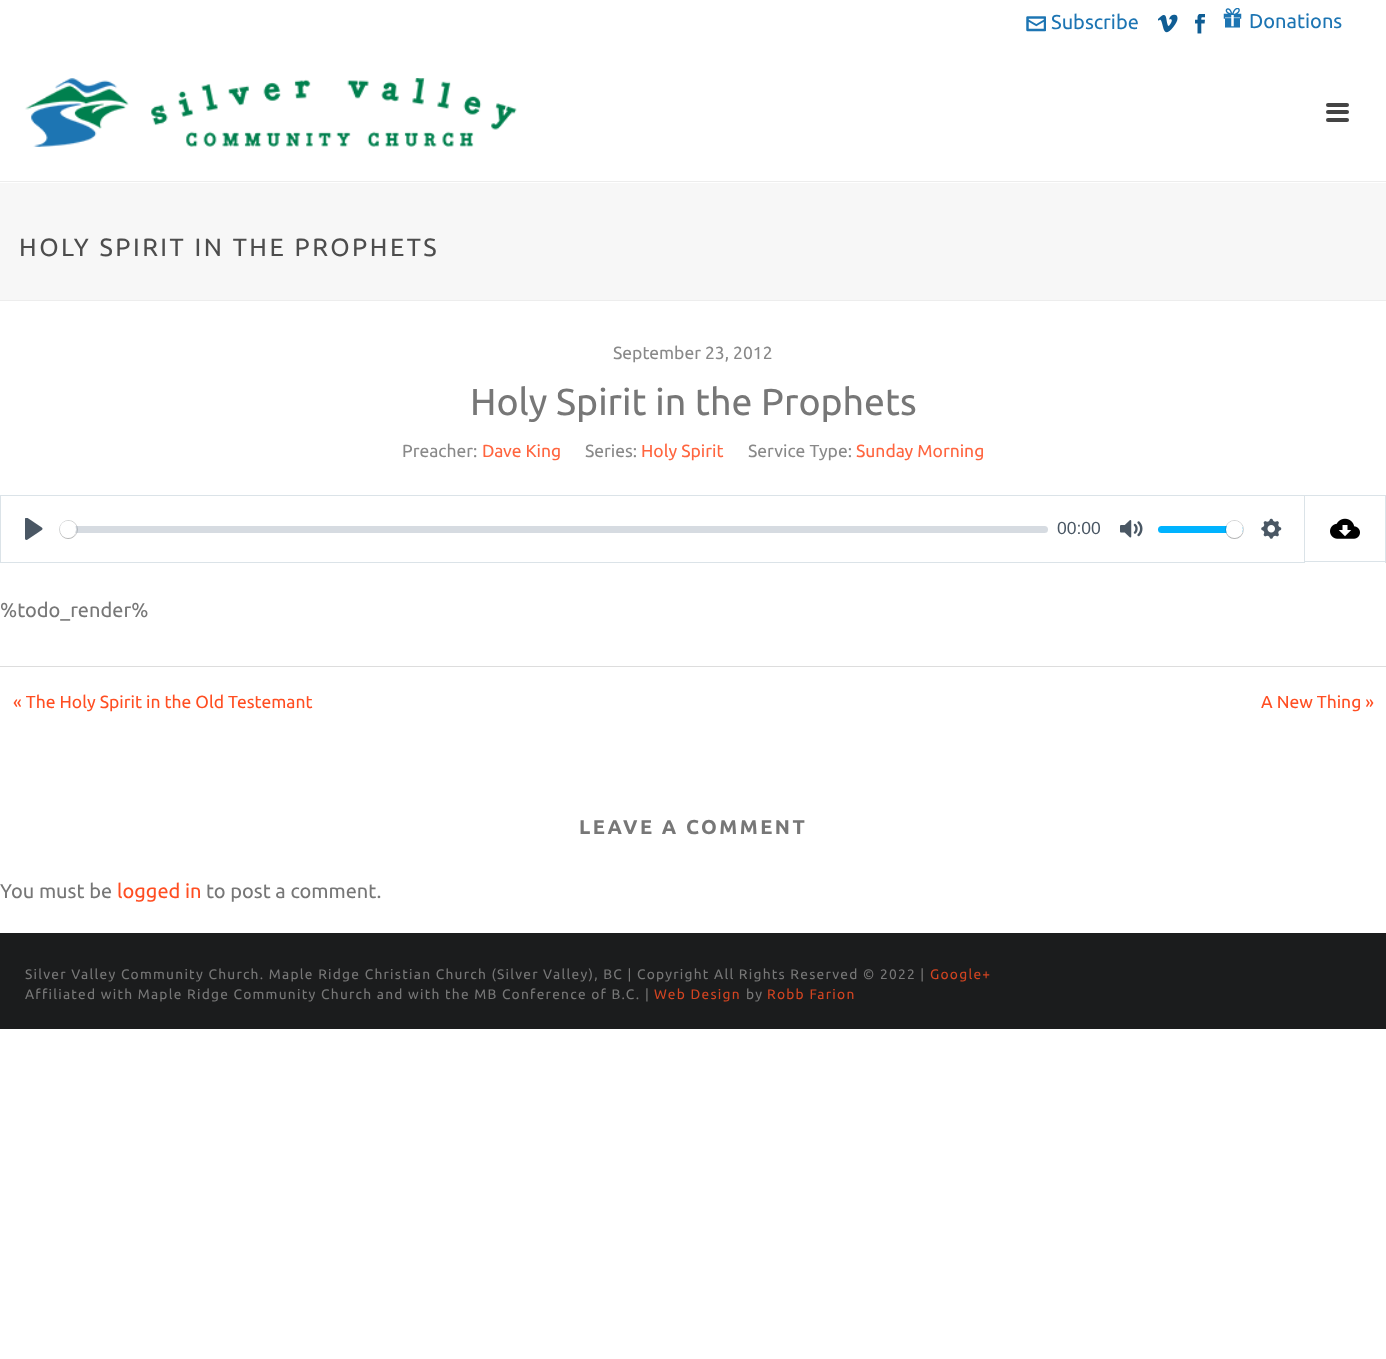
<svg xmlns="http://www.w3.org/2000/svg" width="1386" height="1359">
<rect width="100%" height="100%" fill="#fff"/>
<rect y="300" width="1386" height="1" fill="#ededed"/>
<image x="1026" y="16" width="20" height="16" href="media/1.png"/>
<text x="1051" y="29" style="font-family:Ubuntu;font-size:20px;fill:#1d75b3">Subscribe</text>
<image x="1158" y="14" width="20" height="19" href="media/2.png"/>
<image x="1195" y="14" width="10" height="20" href="media/3.png"/>
<image x="1223" y="8" width="19" height="20" href="media/4.png"/>
<text x="1249" y="28" style="font-family:Ubuntu;font-size:20px;fill:#1d75b3">Donations</text>
<rect y="181" width="1386" height="1" fill="#ededed"/>
<image x="25" y="78" width="492" height="69" href="media/5.png"/>
<rect x="1326" y="103" width="23" height="4" rx="2" fill="#444"/>
<rect x="1326" y="110" width="23" height="4" rx="2" fill="#444"/>
<rect x="1326" y="118" width="23" height="4" rx="2" fill="#444"/>
<rect y="183" width="1386" height="117" fill="#f7f7f7"/>
<text x="19" y="256" style="font-family:Ubuntu;font-size:25px;letter-spacing:2.5px;fill:#4d4d4d">HOLY SPIRIT IN THE PROPHETS</text>
<text x="613" y="359" style="font-family:Ubuntu;font-size:17.5px;fill:#898989">September 23, 2012</text>
<text x="470" y="415" style="font-family:Ubuntu;font-size:37.5px;fill:#777">Holy Spirit in the Prophets</text>
<text x="402" y="457" style="font-family:Ubuntu;font-size:17.5px;fill:#898989">Preacher:</text>
<text x="482" y="457" style="font-family:Ubuntu;font-size:17.5px;fill:#ff653f">Dave King</text>
<text x="585" y="457" style="font-family:Ubuntu;font-size:17.5px;fill:#898989">Series:</text>
<text x="641" y="457" style="font-family:Ubuntu;font-size:17.5px;fill:#ff653f">Holy Spirit</text>
<text x="748" y="457" style="font-family:Ubuntu;font-size:17.5px;fill:#898989">Service Type:</text>
<text x="856" y="457" style="font-family:Ubuntu;font-size:17.5px;fill:#ff653f">Sunday Morning</text>
<rect x="0.5" y="495.5" width="1304" height="67" fill="none" stroke="#dbe3e8"/>
<image x="25" y="518" width="18" height="22" href="media/6.png"/>
<rect x="60" y="526" width="988" height="7" rx="3.5" fill="#c1c9d1a8"/>
<circle cx="68.5" cy="529.5" r="9" fill="none" stroke="#23292f33"/>
<rect x="60" y="523" width="16" height="16" rx="8" fill="#00000026" filter="blur(0.5px)"/>
<rect x="60" y="521" width="16" height="17" rx="8" fill="#fff"/>
<text x="1057" y="534" style="font-family:Liberation Sans;font-size:17.5px;fill:#4a5764">00:00</text>
<image x="1120" y="520" width="23" height="18" href="media/7.png"/>
<rect x="1158" y="526" width="85" height="7" rx="3.5" fill="#00b3ff"/>
<circle cx="1234.5" cy="529.5" r="9" fill="none" stroke="#23292f33"/>
<rect x="1226" y="523" width="17" height="16" rx="8" fill="#00000026" filter="blur(0.5px)"/>
<circle cx="1234.5" cy="529.5" r="8.5" fill="#fff"/>
<image x="1261" y="518" width="21" height="21" href="media/8.png"/>
<rect x="1305" y="495" width="81" height="1" fill="#dbe3e8"/>
<rect x="1385" y="495" width="1" height="68" fill="#dbe3e8"/>
<rect x="1305" y="561" width="81" height="1" fill="#dbe3e8"/>
<image x="1330" y="518" width="30" height="21" href="media/9.png"/>
<text x="0" y="617" style="font-family:Ubuntu;font-size:20px;fill:#777">%todo_render%</text>
<rect y="666" width="1386" height="1" fill="#ddd"/>
<text x="13" y="708" style="font-family:Ubuntu;font-size:17.5px;fill:#ff4e22">« The Holy Spirit in the Old Testemant</text>
<text x="1261" y="708" style="font-family:Ubuntu;font-size:17.5px;fill:#ff4e22">A New Thing »</text>
<text x="579" y="834" style="font-family:Ubuntu;font-size:20px;font-weight:bold;letter-spacing:2.5px;fill:#777">LEAVE A COMMENT</text>
<text x="0" y="898" style="font-family:Ubuntu;font-size:20px;fill:#777">You must be</text>
<text x="117" y="898" style="font-family:Ubuntu;font-size:20px;fill:#ff4e22">logged in</text>
<text x="206" y="898" style="font-family:Ubuntu;font-size:20px;fill:#777">to post a comment.</text>
<rect y="933" width="1386" height="96" fill="#1b1c1d"/>
<text x="25" y="979" style="font-family:Ubuntu;font-size:13.75px;letter-spacing:1.25px;fill:#777">Silver Valley Community Church. Maple Ridge Christian Church (Silver Valley), BC | Copyright All Rights Reserved © 2022 |</text>
<text x="930" y="979" style="font-family:Ubuntu;font-size:13.75px;letter-spacing:1.25px;fill:#d14421">Google+</text>
<text x="25" y="999" style="font-family:Ubuntu;font-size:13.75px;letter-spacing:1.25px;fill:#777">Affiliated with Maple Ridge Community Church and with the MB Conference of B.C. |</text>
<text x="654" y="999" style="font-family:Ubuntu;font-size:13.75px;letter-spacing:1.25px;fill:#d14421">Web Design</text>
<text x="746" y="999" style="font-family:Ubuntu;font-size:13.75px;letter-spacing:1.25px;fill:#777">by</text>
<text x="767" y="999" style="font-family:Ubuntu;font-size:13.75px;letter-spacing:1.25px;fill:#d14421">Robb Farion</text>
</svg>
